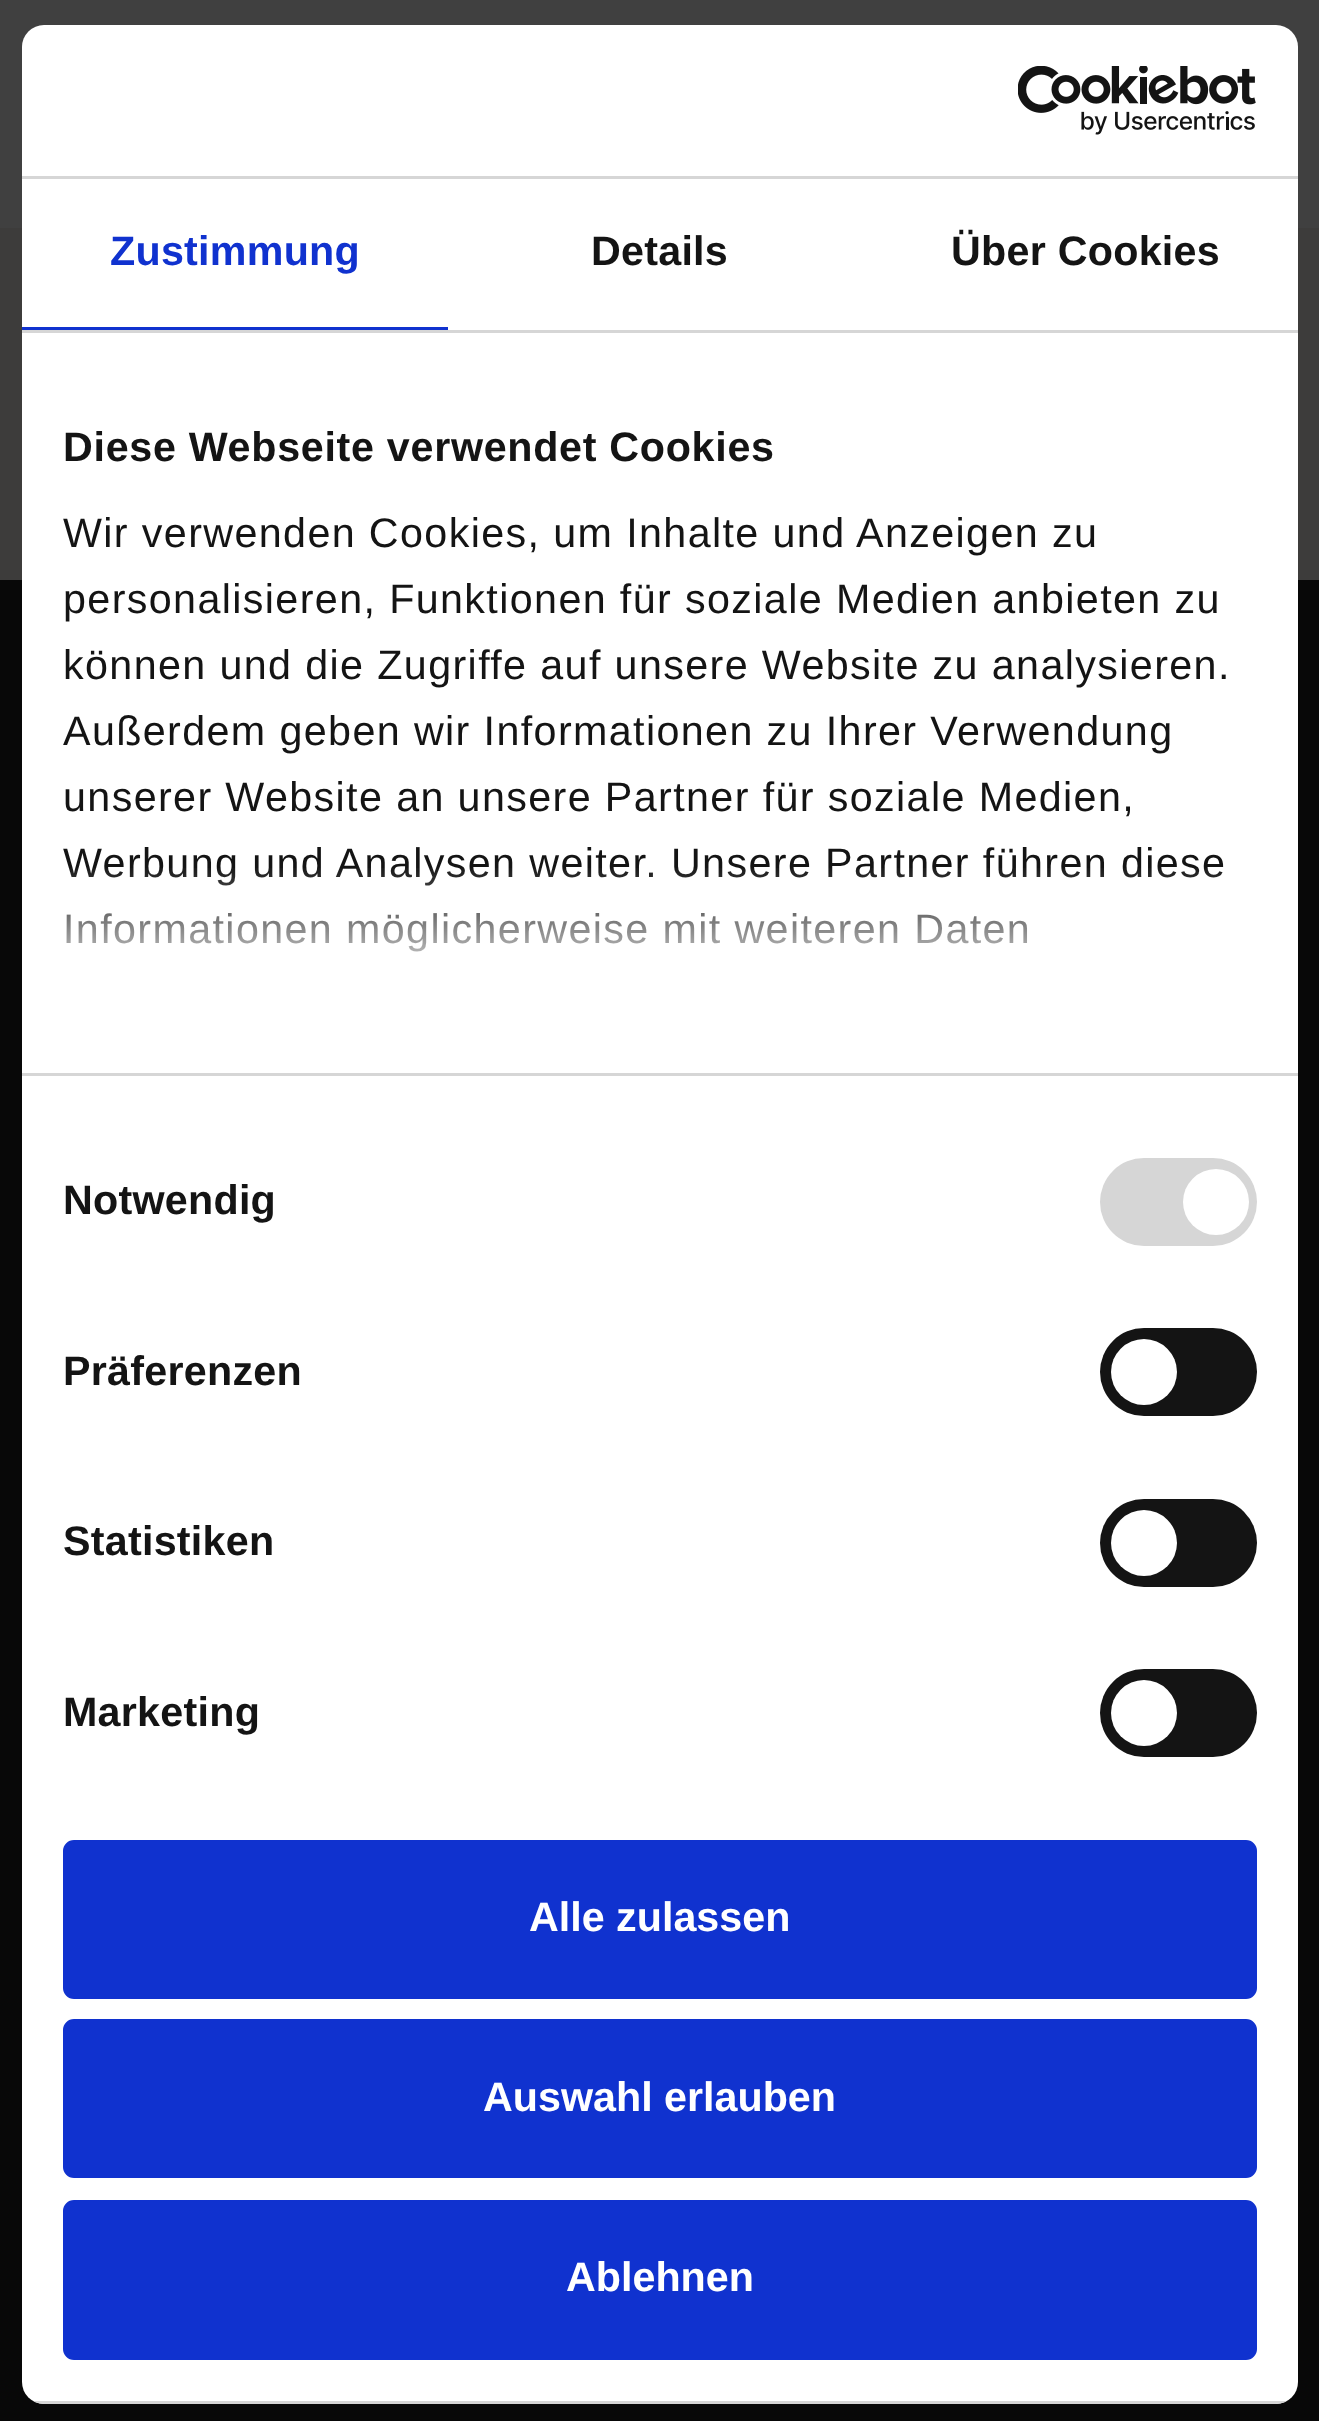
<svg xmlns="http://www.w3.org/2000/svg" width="1319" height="2421">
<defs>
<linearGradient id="g1" gradientUnits="userSpaceOnUse" x1="642" y1="1071" x2="642" y2="865"><stop offset="0" stop-color="#fff"/><stop offset="0.5" stop-color="#fff" stop-opacity="0.8"/><stop offset="1" stop-color="#fff" stop-opacity="0"/></linearGradient>
<clipPath id="clip1"><rect x="22" y="25" width="1276" height="2379" rx="22"/></clipPath>
</defs>
<rect width="100%" height="100%" fill="#404040"/>
<rect y="228" width="1319" height="352" fill="#3d3c3b"/>
<rect y="580" width="1319" height="1841" fill="#080808"/>
<rect x="22" y="25" width="1276" height="2379" rx="22" fill="#fff"/>
<rect x="22" y="176" width="1276" height="3" fill="#d6d6d6"/>
<image x="1018" y="66" width="238" height="69" href="media/1.png"/>
<rect x="22" y="330" width="1276" height="3" fill="#d6d6d6"/>
<rect x="22" y="327" width="426" height="3" fill="#1032cf"/>
<text x="110" y="265" style="font-family:Liberation Sans;font-size:41.25px;font-weight:bold;letter-spacing:0.25px;fill:#1032cf">Zustimmung</text>
<text x="591" y="265" style="font-family:Liberation Sans;font-size:41.25px;font-weight:bold;letter-spacing:0.25px;fill:#141414">Details</text>
<text x="951" y="265" style="font-family:Liberation Sans;font-size:41.25px;font-weight:bold;letter-spacing:0.25px;fill:#141414">Über Cookies</text>
<rect x="22" y="1073" width="1276" height="3" fill="#d6d6d6"/>
<text x="63" y="461" style="font-family:Liberation Sans;font-size:41.25px;font-weight:bold;letter-spacing:0.7px;fill:#141414">Diese Webseite verwendet Cookies</text>
<text x="63" y="547" style="font-family:Liberation Sans;font-size:41.25px;letter-spacing:1.38px;fill:#141414">Wir verwenden Cookies, um Inhalte und Anzeigen zu</text>
<text x="63" y="613" style="font-family:Liberation Sans;font-size:41.25px;letter-spacing:1.38px;fill:#141414">personalisieren, Funktionen für soziale Medien anbieten zu</text>
<text x="63" y="679" style="font-family:Liberation Sans;font-size:41.25px;letter-spacing:1.38px;fill:#141414">können und die Zugriffe auf unsere Website zu analysieren.</text>
<text x="63" y="745" style="font-family:Liberation Sans;font-size:41.25px;letter-spacing:1.38px;fill:#141414">Außerdem geben wir Informationen zu Ihrer Verwendung</text>
<text x="63" y="811" style="font-family:Liberation Sans;font-size:41.25px;letter-spacing:1.38px;fill:#141414">unserer Website an unsere Partner für soziale Medien,</text>
<text x="63" y="877" style="font-family:Liberation Sans;font-size:41.25px;letter-spacing:1.38px;fill:#141414">Werbung und Analysen weiter. Unsere Partner führen diese</text>
<text x="63" y="943" style="font-family:Liberation Sans;font-size:41.25px;letter-spacing:1.38px;fill:#141414">Informationen möglicherweise mit weiteren Daten</text>
<rect x="67" y="868" width="1156" height="84" fill="url(#g1)"/>
<text x="63" y="1214" style="font-family:Liberation Sans;font-size:41.25px;font-weight:bold;letter-spacing:0.25px;fill:#141414">Notwendig</text>
<rect x="1100" y="1158" width="157" height="88" rx="44" fill="#d6d6d6"/>
<circle cx="1216" cy="1202" r="33" fill="#fff"/>
<text x="63" y="1385" style="font-family:Liberation Sans;font-size:41.25px;font-weight:bold;letter-spacing:0.25px;fill:#141414">Präferenzen</text>
<rect x="1100" y="1328" width="157" height="88" rx="44" fill="#141414"/>
<circle cx="1144" cy="1372" r="33" fill="#fff"/>
<text x="63" y="1555" style="font-family:Liberation Sans;font-size:41.25px;font-weight:bold;letter-spacing:0.25px;fill:#141414">Statistiken</text>
<rect x="1100" y="1499" width="157" height="88" rx="44" fill="#141414"/>
<circle cx="1144" cy="1543" r="33" fill="#fff"/>
<text x="63" y="1726" style="font-family:Liberation Sans;font-size:41.25px;font-weight:bold;letter-spacing:0.25px;fill:#141414">Marketing</text>
<rect x="1100" y="1669" width="157" height="88" rx="44" fill="#141414"/>
<circle cx="1144" cy="1713" r="33" fill="#fff"/>
<g clip-path="url(#clip1)">
<rect x="33" y="2401" width="1254" height="3" fill="#d6d6d6"/>
</g>
<rect x="66" y="1843" width="1188" height="153" rx="8" fill="#1032cf" stroke="#1032cf" stroke-width="6"/>
<text x="529" y="1931" style="font-family:Liberation Sans;font-size:41.25px;font-weight:bold;fill:#fff">Alle zulassen</text>
<rect x="66" y="2022" width="1188" height="153" rx="8" fill="#1032cf" stroke="#1032cf" stroke-width="6"/>
<text x="483" y="2111" style="font-family:Liberation Sans;font-size:41.25px;font-weight:bold;fill:#fff">Auswahl erlauben</text>
<rect x="66" y="2203" width="1188" height="154" rx="8" fill="#1032cf" stroke="#1032cf" stroke-width="6"/>
<text x="566" y="2291" style="font-family:Liberation Sans;font-size:41.25px;font-weight:bold;fill:#fff">Ablehnen</text>
</svg>
